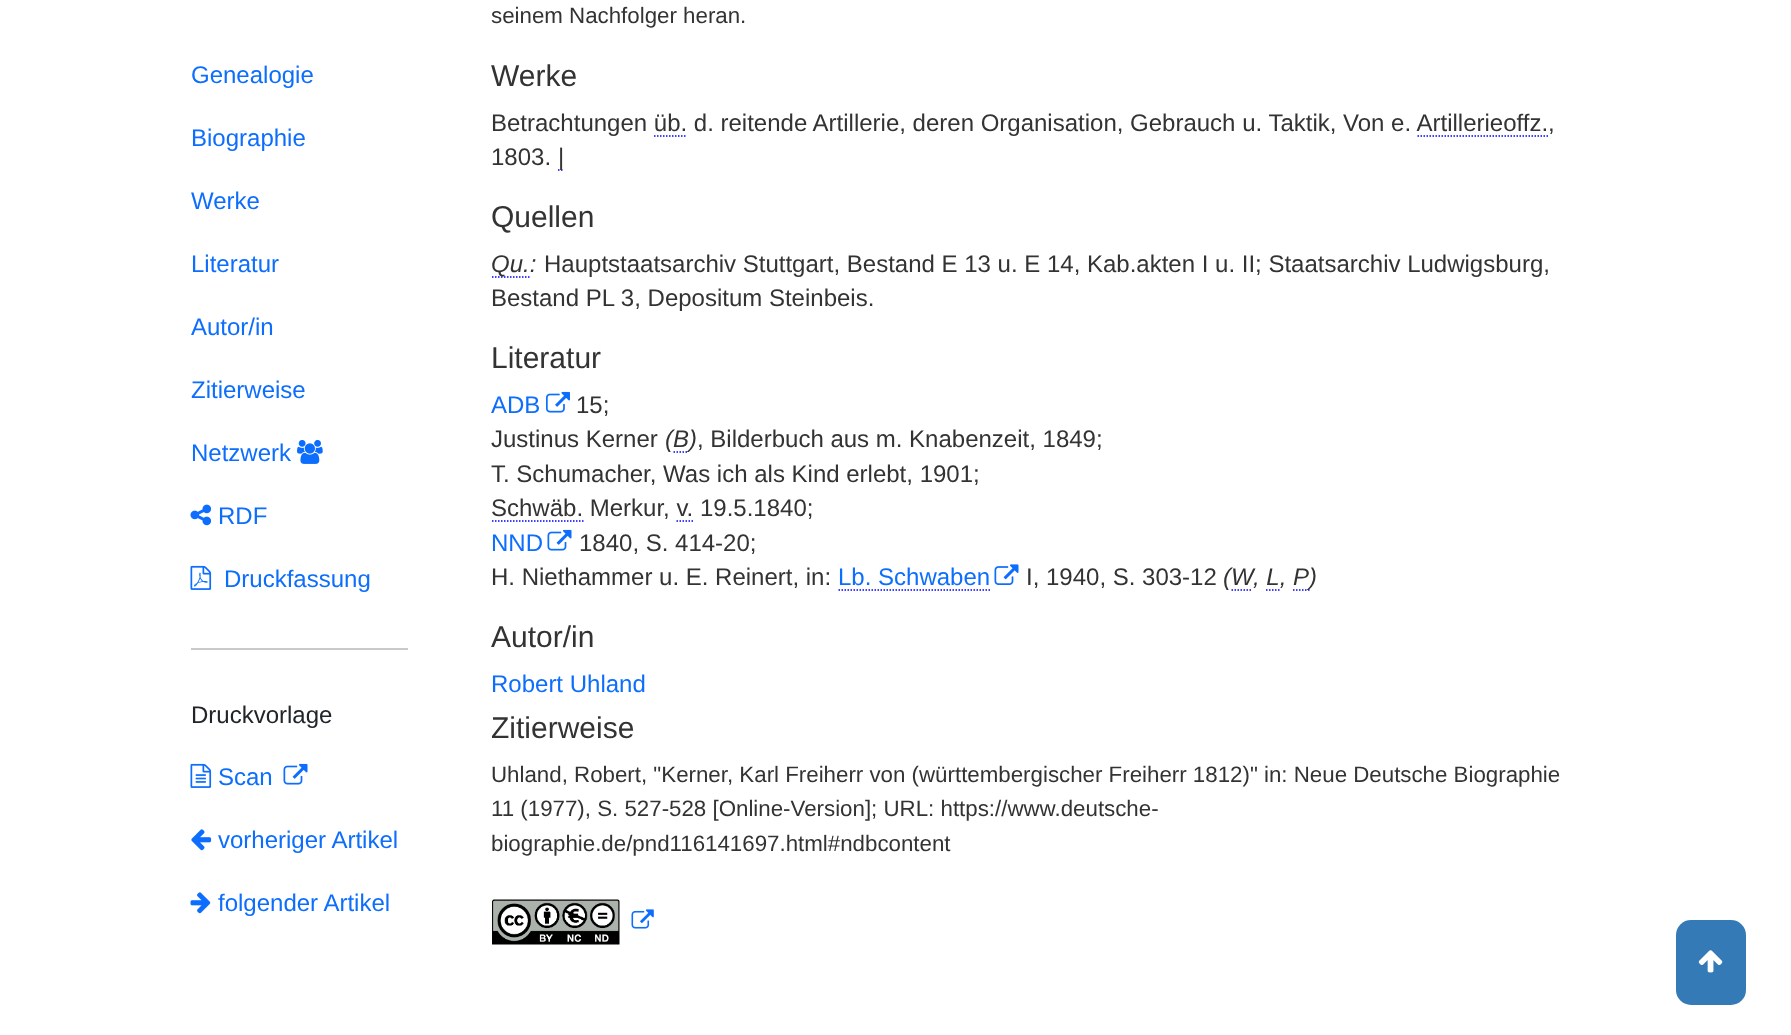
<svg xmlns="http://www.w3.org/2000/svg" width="1791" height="1035">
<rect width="100%" height="100%" fill="#fff"/>
<text x="191" y="83" style="font-family:Liberation Sans;font-size:24px;fill:#0d6efd">Genealogie</text>
<text x="191" y="146" style="font-family:Liberation Sans;font-size:24px;fill:#0d6efd">Biographie</text>
<text x="191" y="209" style="font-family:Liberation Sans;font-size:24px;fill:#0d6efd">Werke</text>
<text x="191" y="272" style="font-family:Liberation Sans;font-size:24px;fill:#0d6efd">Literatur</text>
<text x="191" y="335" style="font-family:Liberation Sans;font-size:24px;fill:#0d6efd">Autor/in</text>
<text x="191" y="398" style="font-family:Liberation Sans;font-size:24px;fill:#0d6efd">Zitierweise</text>
<text x="191" y="461" style="font-family:Liberation Sans;font-size:24px;fill:#0d6efd">Netzwerk</text>
<image x="297" y="439" width="26" height="25" href="media/1.png"/>
<image x="190" y="504" width="22" height="22" href="media/2.png"/>
<text x="218" y="524" style="font-family:Liberation Sans;font-size:24px;fill:#0d6efd">RDF</text>
<image x="190" y="565" width="22" height="25" href="media/3.png"/>
<text x="224" y="587" style="font-family:Liberation Sans;font-size:24px;fill:#0d6efd">Druckfassung</text>
<rect x="191" y="648" width="217" height="2" fill="#c8c9ca"/>
<text x="191" y="723" style="font-family:Liberation Sans;font-size:24px;fill:#212529">Druckvorlage</text>
<image x="190" y="763" width="22" height="25" href="media/4.png"/>
<text x="218" y="785" style="font-family:Liberation Sans;font-size:24px;fill:#0d6efd">Scan</text>
<image x="283" y="763" width="25" height="22" href="media/5.png"/>
<image x="191" y="829" width="21" height="22" href="media/6.png"/>
<text x="218" y="848" style="font-family:Liberation Sans;font-size:24px;fill:#0d6efd">vorheriger Artikel</text>
<image x="190" y="892" width="21" height="22" href="media/7.png"/>
<text x="218" y="911" style="font-family:Liberation Sans;font-size:24px;fill:#0d6efd">folgender Artikel</text>
<text x="491" y="23" style="font-family:Liberation Sans;font-size:22.3px;fill:#333">seinem Nachfolger heran.</text>
<text x="491" y="86" style="font-family:Liberation Sans;font-size:30px;fill:#333">Werke</text>
<text x="491" y="131" style="font-family:Liberation Sans;font-size:24px;fill:#333">Betrachtungen üb. d. reitende Artillerie, deren Organisation, Gebrauch u. Taktik, Von e. Artillerieoffz.,</text>
<path d="M654 136h33" fill="none" stroke="#00f" stroke-width="1.5" stroke-dasharray="1.5 1.5"/>
<path d="M1417.5 136h130.5" fill="none" stroke="#00f" stroke-width="1.5" stroke-dasharray="1.5 1.5"/>
<text x="491" y="165" style="font-family:Liberation Sans;font-size:24px;fill:#333">1803.</text>
<path d="M558 170h1.5m1.5 0h1.5" fill="none" stroke="#00f" stroke-width="1.5"/>
<text x="558" y="165" style="font-family:Liberation Sans;font-size:24px;fill:#333">|</text>
<text x="491" y="227" style="font-family:Liberation Sans;font-size:30px;fill:#333">Quellen</text>
<path d="M492 277h37.5" fill="none" stroke="#00f" stroke-width="1.5" stroke-dasharray="1.5 1.5"/>
<text x="491" y="272" style="font-family:Liberation Sans;font-size:24px;font-style:italic;fill:#333">Qu.:</text>
<text x="544" y="272" style="font-family:Liberation Sans;font-size:24px;fill:#333">Hauptstaatsarchiv Stuttgart, Bestand E 13 u. E 14, Kab.akten I u. II; Staatsarchiv Ludwigsburg,</text>
<text x="491" y="306" style="font-family:Liberation Sans;font-size:24px;fill:#333">Bestand PL 3, Depositum Steinbeis.</text>
<text x="491" y="368" style="font-family:Liberation Sans;font-size:30px;fill:#333">Literatur</text>
<text x="491" y="413" style="font-family:Liberation Sans;font-size:24px;fill:#0d6efd">ADB</text>
<image x="546" y="391" width="24" height="22" href="media/8.png"/>
<text x="576" y="413" style="font-family:Liberation Sans;font-size:24px;fill:#333">15;</text>
<text x="491" y="447" style="font-family:Liberation Sans;font-size:24px;fill:#333">Justinus Kerner</text>
<text x="665" y="447" style="font-family:Liberation Sans;font-size:24px;font-style:italic;fill:#333">(B</text>
<path d="M673.5 452h15" fill="none" stroke="#00f" stroke-width="1.5" stroke-dasharray="1.5 1.5"/>
<text x="689" y="447" style="font-family:Liberation Sans;font-size:24px;font-style:italic;fill:#333">)</text>
<text x="697" y="447" style="font-family:Liberation Sans;font-size:24px;fill:#333">, Bilderbuch aus m. Knabenzeit, 1849;</text>
<text x="491" y="482" style="font-family:Liberation Sans;font-size:24px;fill:#333">T. Schumacher, Was ich als Kind erlebt, 1901;</text>
<text x="491" y="516" style="font-family:Liberation Sans;font-size:24px;fill:#333">Schwäb. Merkur, v. 19.5.1840;</text>
<path d="M492 521h91.5" fill="none" stroke="#00f" stroke-width="1.5" stroke-dasharray="1.5 1.5"/>
<path d="M676.5 521h18" fill="none" stroke="#00f" stroke-width="1.5" stroke-dasharray="1.5 1.5"/>
<text x="491" y="551" style="font-family:Liberation Sans;font-size:24px;fill:#0d6efd">NND</text>
<image x="547" y="529" width="25" height="22" href="media/5.png"/>
<text x="579" y="551" style="font-family:Liberation Sans;font-size:24px;fill:#333">1840, S. 414-20;</text>
<text x="491" y="585" style="font-family:Liberation Sans;font-size:24px;fill:#333">H. Niethammer u. E. Reinert, in:</text>
<text x="838" y="585" style="font-family:Liberation Sans;font-size:24px;fill:#0d6efd">Lb. Schwaben</text>
<path d="M838.5 590h151.5" fill="none" stroke="#00f" stroke-width="1.5" stroke-dasharray="1.5 1.5"/>
<image x="994" y="564" width="25" height="21" href="media/9.png"/>
<text x="1026" y="585" style="font-family:Liberation Sans;font-size:24px;fill:#333">I, 1940, S. 303-12</text>
<text x="1223" y="585" style="font-family:Liberation Sans;font-size:24px;font-style:italic;fill:#333">(W</text>
<path d="M1231.5 590h21" fill="none" stroke="#00f" stroke-width="1.5" stroke-dasharray="1.5 1.5"/>
<text x="1253" y="585" style="font-family:Liberation Sans;font-size:24px;font-style:italic;fill:#333">, L, P</text>
<path d="M1266 590h13.5m13.5 0h16.5" fill="none" stroke="#00f" stroke-width="1.5" stroke-dasharray="1.5 1.5"/>
<text x="1309" y="585" style="font-family:Liberation Sans;font-size:24px;font-style:italic;fill:#333">)</text>
<text x="491" y="647" style="font-family:Liberation Sans;font-size:30px;fill:#333">Autor/in</text>
<text x="491" y="692" style="font-family:Liberation Sans;font-size:24px;fill:#0d6efd">Robert Uhland</text>
<text x="491" y="738" style="font-family:Liberation Sans;font-size:30px;fill:#333">Zitierweise</text>
<text x="491" y="782" style="font-family:Liberation Sans;font-size:22.3px;fill:#333">Uhland, Robert, "Kerner, Karl Freiherr von (württembergischer Freiherr 1812)" in: Neue Deutsche Biographie</text>
<text x="491" y="816" style="font-family:Liberation Sans;font-size:22.3px;fill:#333">11 (1977), S. 527-528 [Online-Version]; URL: https://www.deutsche-</text>
<text x="491" y="851" style="font-family:Liberation Sans;font-size:22.3px;fill:#333">biographie.de/pnd116141697.html#ndbcontent</text>
<image x="492" y="899" width="128" height="46" href="media/10.png"/>
<image x="631" y="909" width="23" height="20" href="media/11.png"/>
<rect x="1676" y="920" width="70" height="85" rx="15" fill="#337ab7"/>
<image x="1698" y="950" width="25" height="23" href="media/12.png"/>
</svg>
